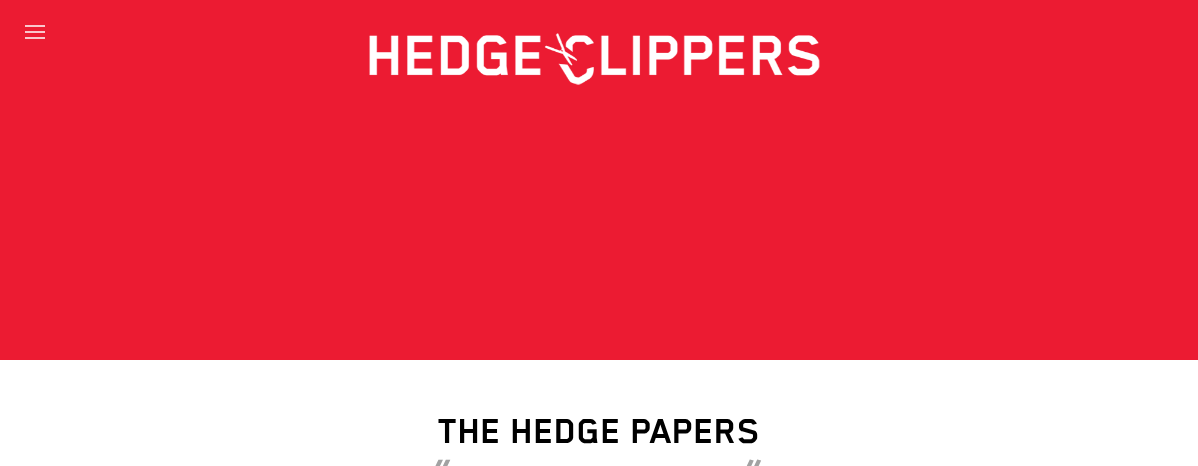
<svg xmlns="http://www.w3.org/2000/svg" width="1198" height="466">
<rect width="100%" height="100%" fill="#fff"/>
<rect width="1198" height="360" fill="#ec1b32"/>
<rect x="25" y="31" width="20" height="2" fill="#fac6cc"/>
<rect x="25" y="25" width="20" height="2" fill="#fac6cc"/>
<rect x="25" y="37" width="20" height="2" fill="#fac6cc"/>
<image x="369" y="33" width="451" height="52" href="media/1.png"/>
<text x="438" y="443" style="font-family:'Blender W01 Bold';font-size:40px;font-weight:bold;fill:#000">THE HEDGE PAPERS</text>
<text x="436" y="485" style="font-family:'Blender W01 Bold';font-size:40px;font-weight:bold;fill:#a2a2a2">“</text>
<text x="747" y="485" style="font-family:'Blender W01 Bold';font-size:40px;font-weight:bold;fill:#a2a2a2">”</text>
</svg>
